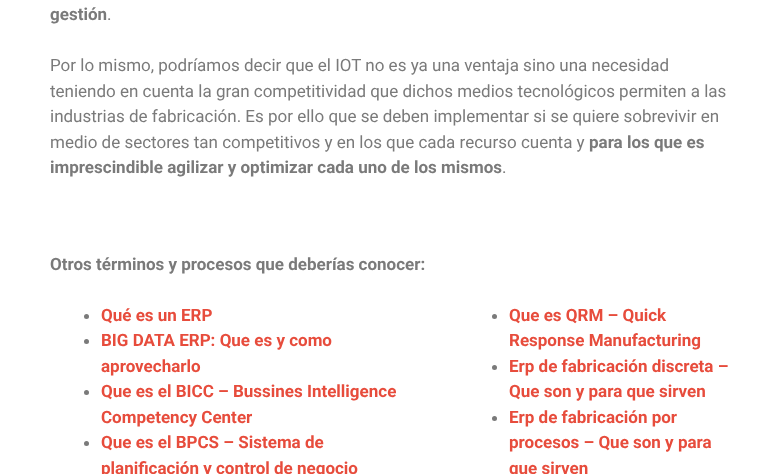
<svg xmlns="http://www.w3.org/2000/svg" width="780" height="474">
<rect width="100%" height="100%" fill="#fff"/>
<text x="50" y="20" style="font-family:Roboto;font-size:17px;font-weight:bold;fill:#7a7a7a">gestión</text>
<text x="107" y="20" style="font-family:Roboto;font-size:17px;fill:#7a7a7a">.</text>
<text x="50" y="71" style="font-family:Roboto;font-size:17px;fill:#7a7a7a">Por lo mismo, podríamos decir que el IOT no es ya una ventaja sino una necesidad</text>
<text x="50" y="97" style="font-family:Roboto;font-size:17px;fill:#7a7a7a">teniendo en cuenta la gran competitividad que dichos medios tecnológicos permiten a las</text>
<text x="50" y="122" style="font-family:Roboto;font-size:17px;fill:#7a7a7a">industrias de fabricación. Es por ello que se deben implementar si se quiere sobrevivir en</text>
<text x="50" y="148" style="font-family:Roboto;font-size:17px;fill:#7a7a7a">medio de sectores tan competitivos y en los que cada recurso cuenta y</text>
<text x="589" y="148" style="font-family:Roboto;font-size:17px;font-weight:bold;fill:#7a7a7a">para los que es</text>
<text x="50" y="173" style="font-family:Roboto;font-size:17px;font-weight:bold;fill:#7a7a7a">imprescindible agilizar y optimizar cada uno de los mismos</text>
<text x="502" y="173" style="font-family:Roboto;font-size:17px;fill:#7a7a7a">.</text>
<text x="50" y="270" style="font-family:Roboto;font-size:17px;font-weight:bold;fill:#7a7a7a">Otros términos y procesos que deberías conocer:</text>
<circle cx="86.5" cy="316.5" r="2.5" fill="#7a7a7a"/>
<text x="101" y="321" style="font-family:Roboto;font-size:17px;font-weight:bold;fill:#e74c3c">Qué es un ERP</text>
<circle cx="86.5" cy="341.5" r="2.5" fill="#7a7a7a"/>
<text x="101" y="346" style="font-family:Roboto;font-size:17px;font-weight:bold;fill:#e74c3c">BIG DATA ERP: Que es y como</text>
<text x="101" y="372" style="font-family:Roboto;font-size:17px;font-weight:bold;fill:#e74c3c">aprovecharlo</text>
<circle cx="86.5" cy="392.5" r="2.5" fill="#7a7a7a"/>
<text x="101" y="397" style="font-family:Roboto;font-size:17px;font-weight:bold;fill:#e74c3c">Que es el BICC – Bussines Intelligence</text>
<text x="101" y="423" style="font-family:Roboto;font-size:17px;font-weight:bold;fill:#e74c3c">Competency Center</text>
<circle cx="86.5" cy="443.5" r="2.5" fill="#7a7a7a"/>
<text x="101" y="448" style="font-family:Roboto;font-size:17px;font-weight:bold;fill:#e74c3c">Que es el BPCS – Sistema de</text>
<text x="101" y="474" style="font-family:Roboto;font-size:17px;font-weight:bold;fill:#e74c3c">planificación y control de negocio</text>
<circle cx="494.5" cy="316.5" r="2.5" fill="#7a7a7a"/>
<text x="509" y="321" style="font-family:Roboto;font-size:17px;font-weight:bold;fill:#e74c3c">Que es QRM – Quick</text>
<text x="509" y="346" style="font-family:Roboto;font-size:17px;font-weight:bold;fill:#e74c3c">Response Manufacturing</text>
<circle cx="494.5" cy="367.5" r="2.5" fill="#7a7a7a"/>
<text x="509" y="372" style="font-family:Roboto;font-size:17px;font-weight:bold;fill:#e74c3c">Erp de fabricación discreta –</text>
<text x="509" y="397" style="font-family:Roboto;font-size:17px;font-weight:bold;fill:#e74c3c">Que son y para que sirven</text>
<circle cx="494.5" cy="418.5" r="2.5" fill="#7a7a7a"/>
<text x="509" y="423" style="font-family:Roboto;font-size:17px;font-weight:bold;fill:#e74c3c">Erp de fabricación por</text>
<text x="509" y="448" style="font-family:Roboto;font-size:17px;font-weight:bold;fill:#e74c3c">procesos – Que son y para</text>
<text x="509" y="474" style="font-family:Roboto;font-size:17px;font-weight:bold;fill:#e74c3c">que sirven</text>
</svg>
